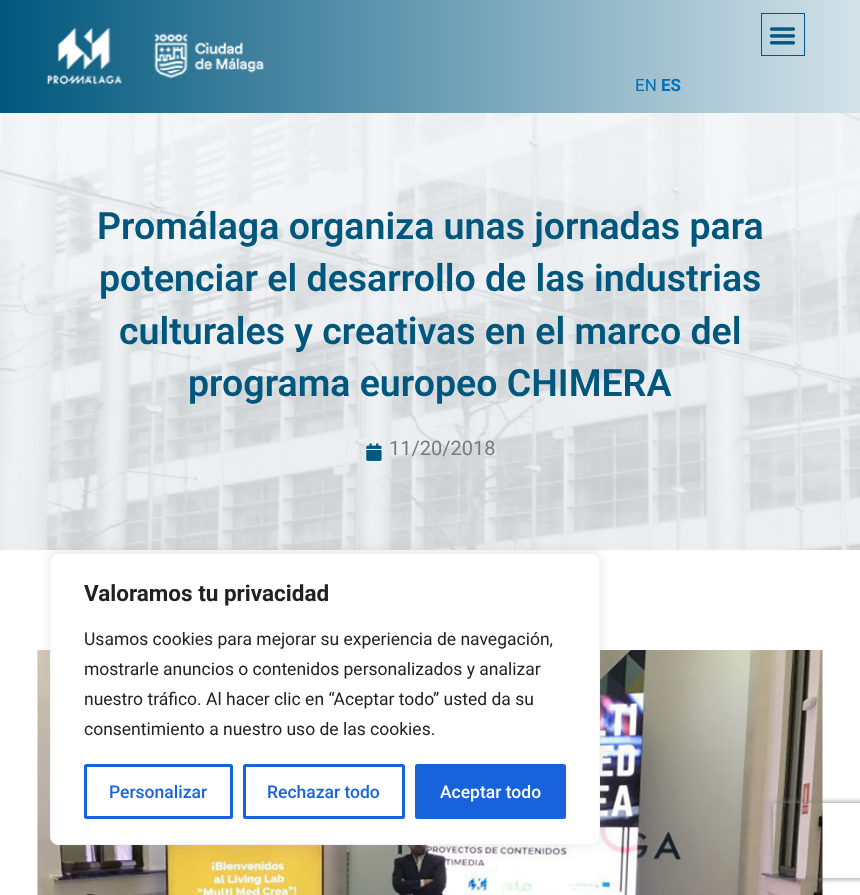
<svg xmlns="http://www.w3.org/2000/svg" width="860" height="895">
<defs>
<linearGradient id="g1" gradientUnits="userSpaceOnUse" x1="0" y1="56" x2="860" y2="56"><stop offset="0" stop-color="#00577d"/><stop offset="1" stop-color="#d3e2e9"/></linearGradient>
<clipPath id="clip1"><path d="M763 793h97v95h-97zm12.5 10h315c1.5 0 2.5 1 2.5 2.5v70c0 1.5-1 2.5-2.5 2.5h-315c-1.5 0-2.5-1-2.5-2.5v-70c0-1.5 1-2.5 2.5-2.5z" clip-rule="evenodd"/></clipPath>
</defs>
<rect width="100%" height="100%" fill="#fff"/>
<rect width="860" height="113" fill="url(#g1)"/>
<image x="46" y="28" width="219" height="57" href="media/1.png"/>
<rect x="761.5" y="13.5" width="43" height="42" fill="none" stroke="#02587e"/>
<image x="769" y="27" width="27" height="18" href="media/2.png"/>
<text x="635" y="91" style="font-family:Roboto;font-size:17px;fill:#0170b9">EN</text>
<text x="661" y="91" style="font-family:Roboto;font-size:17px;font-weight:bold;fill:#0170b9">ES</text>
<image x="0" y="113" width="860" height="437" href="media/3.png"/>
<text x="97" y="239" style="font-family:Roboto;font-size:37.5px;font-weight:600;fill:#00577d">Promálaga organiza unas jornadas para</text>
<text x="99" y="291" style="font-family:Roboto;font-size:37.5px;font-weight:600;fill:#00577d">potenciar el desarrollo de las industrias</text>
<text x="119" y="344" style="font-family:Roboto;font-size:37.5px;font-weight:600;fill:#00577d">culturales y creativas en el marco del</text>
<text x="188" y="396" style="font-family:Roboto;font-size:37.5px;font-weight:600;fill:#00577d">programa europeo CHIMERA</text>
<image x="366" y="443" width="16" height="18" href="media/4.png"/>
<text x="389" y="455" style="font-family:Roboto;font-size:20px;fill:#7a7a7a">11/20/2018</text>
<image x="37" y="650" width="786" height="245" href="media/5.png"/>
<rect x="50" y="551" width="550" height="293" rx="8" fill="#acabab4d" filter="blur(6px)"/>
<rect x="50.5" y="553.5" width="549" height="291" rx="7.5" fill="#fff" stroke="#f4f4f4"/>
<text x="84" y="601" style="font-family:Roboto;font-size:22.5px;font-weight:bold;fill:#212121">Valoramos tu privacidad</text>
<text x="84" y="645" style="font-family:Roboto;font-size:17.5px;fill:#212121">Usamos cookies para mejorar su experiencia de navegación,</text>
<text x="84" y="675" style="font-family:Roboto;font-size:17.5px;fill:#212121">mostrarle anuncios o contenidos personalizados y analizar</text>
<text x="84" y="705" style="font-family:Roboto;font-size:17.5px;fill:#212121">nuestro tráfico. Al hacer clic en “Aceptar todo” usted da su</text>
<text x="84" y="735" style="font-family:Roboto;font-size:17.5px;fill:#212121">consentimiento a nuestro uso de las cookies.</text>
<rect x="85.5" y="765.5" width="146" height="52" rx="1" fill="none" stroke="#1863dc" stroke-width="3"/>
<text x="109" y="798" style="font-family:Roboto;font-size:17.5px;font-weight:500;fill:#1863dc">Personalizar</text>
<rect x="244.5" y="765.5" width="159" height="52" rx="1" fill="none" stroke="#1863dc" stroke-width="3"/>
<text x="267" y="798" style="font-family:Roboto;font-size:17.5px;font-weight:500;fill:#1863dc">Rechazar todo</text>
<rect x="416.5" y="765.5" width="148" height="52" rx="1" fill="#1863dc" stroke="#1863dc" stroke-width="3"/>
<text x="440" y="798" style="font-family:Roboto;font-size:17.5px;font-weight:500;fill:#fff">Aceptar todo</text>
<g clip-path="url(#clip1)">
<rect x="773" y="803" width="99" height="75" rx="2.5" fill="#808080" filter="blur(3px)"/>
</g>
</svg>
